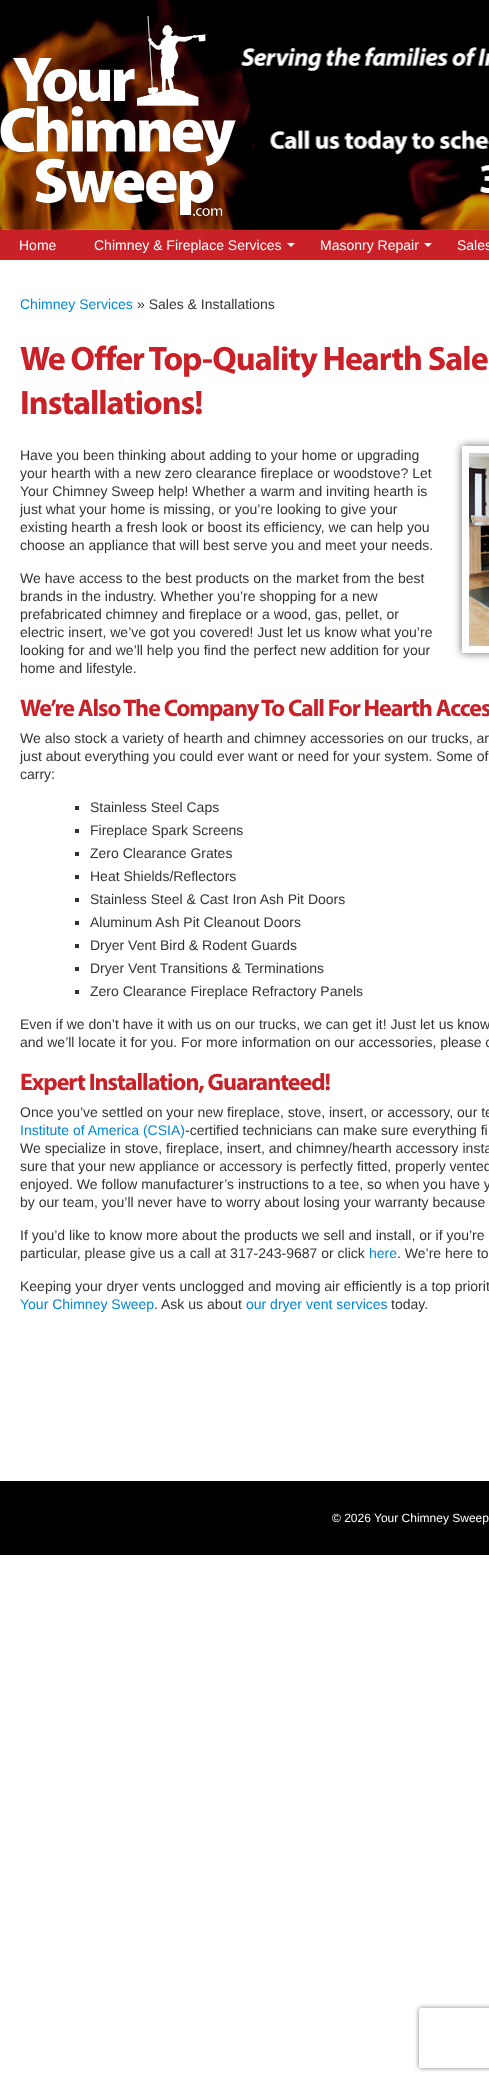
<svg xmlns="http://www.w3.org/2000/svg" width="489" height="2082">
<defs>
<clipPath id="clip1"><path d="M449 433h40v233h-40zm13 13h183v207h-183z" clip-rule="evenodd"/></clipPath>
<clipPath id="clip2"><path d="M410 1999h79v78h-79zm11 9h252c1 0 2 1 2 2v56c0 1-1 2-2 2h-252c-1 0-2-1-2-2v-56c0-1 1-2 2-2z" clip-rule="evenodd"/></clipPath>
</defs>
<rect width="100%" height="100%" fill="#fff"/>
<image x="0" y="0" width="489" height="260" href="media/1.png"/>
<image x="0" y="15" width="236" height="201" href="media/2.png"/>
<text x="19" y="250" style="font-family:Liberation Sans;font-size:14px;fill:#fff">Home</text>
<text x="94" y="250" style="font-family:Liberation Sans;font-size:14px;fill:#fff">Chimney &amp; Fireplace Services</text>
<path d="M287 243h8l-4 4z" fill="#fff"/>
<text x="320" y="250" style="font-family:Liberation Sans;font-size:14px;fill:#fff">Masonry Repair</text>
<path d="M424 243h8l-4 4z" fill="#fff"/>
<text x="457" y="250" style="font-family:Liberation Sans;font-size:14px;fill:#fff">Sales</text>
<text x="20" y="309" style="font-family:Liberation Sans;font-size:14px;fill:#0087d6">Chimney Services</text>
<text x="137" y="309" style="font-family:Liberation Sans;font-size:14px;fill:#333">» Sales &amp; Installations</text>
<text x="20" y="370" style="font-family:Myriad;font-size:34px;font-weight:bold;letter-spacing:-1px;fill:#ca2128">We Offer Top-Quality Hearth Sale</text>
<text x="20" y="414" style="font-family:Myriad;font-size:34px;font-weight:bold;letter-spacing:-1px;fill:#ca2128">Installations!</text>
<text x="20" y="460" style="font-family:Liberation Sans;font-size:14px;fill:#333">Have you been thinking about adding to your home or upgrading</text>
<text x="20" y="478" style="font-family:Liberation Sans;font-size:14px;fill:#333">your hearth with a new zero clearance fireplace or woodstove? Let</text>
<text x="20" y="496" style="font-family:Liberation Sans;font-size:14px;fill:#333">Your Chimney Sweep help! Whether a warm and inviting hearth is</text>
<text x="20" y="514" style="font-family:Liberation Sans;font-size:14px;fill:#333">just what your home is missing, or you’re looking to give your</text>
<text x="20" y="532" style="font-family:Liberation Sans;font-size:14px;fill:#333">existing hearth a fresh look or boost its efficiency, we can help you</text>
<text x="20" y="550" style="font-family:Liberation Sans;font-size:14px;fill:#333">choose an appliance that will best serve you and meet your needs.</text>
<g clip-path="url(#clip1)">
<rect x="462" y="446" width="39" height="207" fill="#00000099" filter="blur(4px)"/>
</g>
<image x="469" y="453" width="20" height="193" href="media/3.png"/>
<text x="20" y="583" style="font-family:Liberation Sans;font-size:14px;fill:#333">We have access to the best products on the market from the best</text>
<text x="20" y="601" style="font-family:Liberation Sans;font-size:14px;fill:#333">brands in the industry. Whether you’re shopping for a new</text>
<text x="20" y="619" style="font-family:Liberation Sans;font-size:14px;fill:#333">prefabricated chimney and fireplace or a wood, gas, pellet, or</text>
<text x="20" y="637" style="font-family:Liberation Sans;font-size:14px;fill:#333">electric insert, we’ve got you covered! Just let us know what you’re</text>
<text x="20" y="655" style="font-family:Liberation Sans;font-size:14px;fill:#333">looking for and we’ll help you find the perfect new addition for your</text>
<text x="20" y="673" style="font-family:Liberation Sans;font-size:14px;fill:#333">home and lifestyle.</text>
<text x="20" y="716" style="font-family:Myriad;font-size:24px;font-weight:bold;letter-spacing:-1px;fill:#ca2128">We’re Also The Company To Call For Hearth Acces</text>
<text x="20" y="743" style="font-family:Liberation Sans;font-size:14px;fill:#333">We also stock a variety of hearth and chimney accessories on our trucks, an</text>
<text x="20" y="761" style="font-family:Liberation Sans;font-size:14px;fill:#333">just about everything you could ever want or need for your system. Some of</text>
<text x="20" y="779" style="font-family:Liberation Sans;font-size:14px;fill:#333">carry:</text>
<rect x="75" y="806" width="4" height="4" fill="#333"/>
<text x="90" y="812" style="font-family:Liberation Sans;font-size:14px;fill:#333">Stainless Steel Caps</text>
<rect x="75" y="829" width="4" height="4" fill="#333"/>
<text x="90" y="835" style="font-family:Liberation Sans;font-size:14px;fill:#333">Fireplace Spark Screens</text>
<rect x="75" y="852" width="4" height="4" fill="#333"/>
<text x="90" y="858" style="font-family:Liberation Sans;font-size:14px;fill:#333">Zero Clearance Grates</text>
<rect x="75" y="875" width="4" height="4" fill="#333"/>
<text x="90" y="881" style="font-family:Liberation Sans;font-size:14px;fill:#333">Heat Shields/Reflectors</text>
<rect x="75" y="898" width="4" height="4" fill="#333"/>
<text x="90" y="904" style="font-family:Liberation Sans;font-size:14px;fill:#333">Stainless Steel &amp; Cast Iron Ash Pit Doors</text>
<rect x="75" y="921" width="4" height="4" fill="#333"/>
<text x="90" y="927" style="font-family:Liberation Sans;font-size:14px;fill:#333">Aluminum Ash Pit Cleanout Doors</text>
<rect x="75" y="944" width="4" height="4" fill="#333"/>
<text x="90" y="950" style="font-family:Liberation Sans;font-size:14px;fill:#333">Dryer Vent Bird &amp; Rodent Guards</text>
<rect x="75" y="967" width="4" height="4" fill="#333"/>
<text x="90" y="973" style="font-family:Liberation Sans;font-size:14px;fill:#333">Dryer Vent Transitions &amp; Terminations</text>
<rect x="75" y="990" width="4" height="4" fill="#333"/>
<text x="90" y="996" style="font-family:Liberation Sans;font-size:14px;fill:#333">Zero Clearance Fireplace Refractory Panels</text>
<text x="20" y="1029" style="font-family:Liberation Sans;font-size:14px;fill:#333">Even if we don’t have it with us on our trucks, we can get it! Just let us know</text>
<text x="20" y="1047" style="font-family:Liberation Sans;font-size:14px;fill:#333">and we’ll locate it for you. For more information on our accessories, please c</text>
<text x="20" y="1090" style="font-family:Myriad;font-size:24px;font-weight:bold;letter-spacing:-1px;fill:#ca2128">Expert Installation, Guaranteed!</text>
<text x="20" y="1117" style="font-family:Liberation Sans;font-size:14px;fill:#333">Once you’ve settled on your new fireplace, stove, insert, or accessory, our te</text>
<text x="20" y="1135" style="font-family:Liberation Sans;font-size:14px;fill:#0087d6">Institute of America (CSIA)</text>
<text x="185" y="1135" style="font-family:Liberation Sans;font-size:14px;fill:#333">-certified technicians can make sure everything fi</text>
<text x="20" y="1153" style="font-family:Liberation Sans;font-size:14px;fill:#333">We specialize in stove, fireplace, insert, and chimney/hearth accessory insta</text>
<text x="20" y="1171" style="font-family:Liberation Sans;font-size:14px;fill:#333">sure that your new appliance or accessory is perfectly fitted, properly vented</text>
<text x="20" y="1189" style="font-family:Liberation Sans;font-size:14px;fill:#333">enjoyed. We follow manufacturer’s instructions to a tee, so when you have y</text>
<text x="20" y="1207" style="font-family:Liberation Sans;font-size:14px;fill:#333">by our team, you’ll never have to worry about losing your warranty because</text>
<text x="20" y="1240" style="font-family:Liberation Sans;font-size:14px;fill:#333">If you’d like to know more about the products we sell and install, or if you’re</text>
<text x="20" y="1258" style="font-family:Liberation Sans;font-size:14px;fill:#333">particular, please give us a call at 317-243-9687 or click</text>
<text x="369" y="1258" style="font-family:Liberation Sans;font-size:14px;fill:#0087d6">here</text>
<text x="397" y="1258" style="font-family:Liberation Sans;font-size:14px;fill:#333">. We’re here to</text>
<text x="20" y="1291" style="font-family:Liberation Sans;font-size:14px;fill:#333">Keeping your dryer vents unclogged and moving air efficiently is a top priorit</text>
<text x="20" y="1309" style="font-family:Liberation Sans;font-size:14px;fill:#0087d6">Your Chimney Sweep</text>
<text x="154" y="1309" style="font-family:Liberation Sans;font-size:14px;fill:#333">. Ask us about</text>
<text x="246" y="1309" style="font-family:Liberation Sans;font-size:14px;fill:#0087d6">our dryer vent services</text>
<text x="391" y="1309" style="font-family:Liberation Sans;font-size:14px;fill:#333">today.</text>
<rect y="1481" width="489" height="74" fill="#000"/>
<text x="332" y="1522" style="font-family:Liberation Sans;font-size:12px;fill:#fff">© 2026 Your Chimney Sweep</text>
<g clip-path="url(#clip2)">
<rect x="419" y="2008" width="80" height="60" rx="2" fill="#808080" filter="blur(2.5px)"/>
</g>
</svg>
